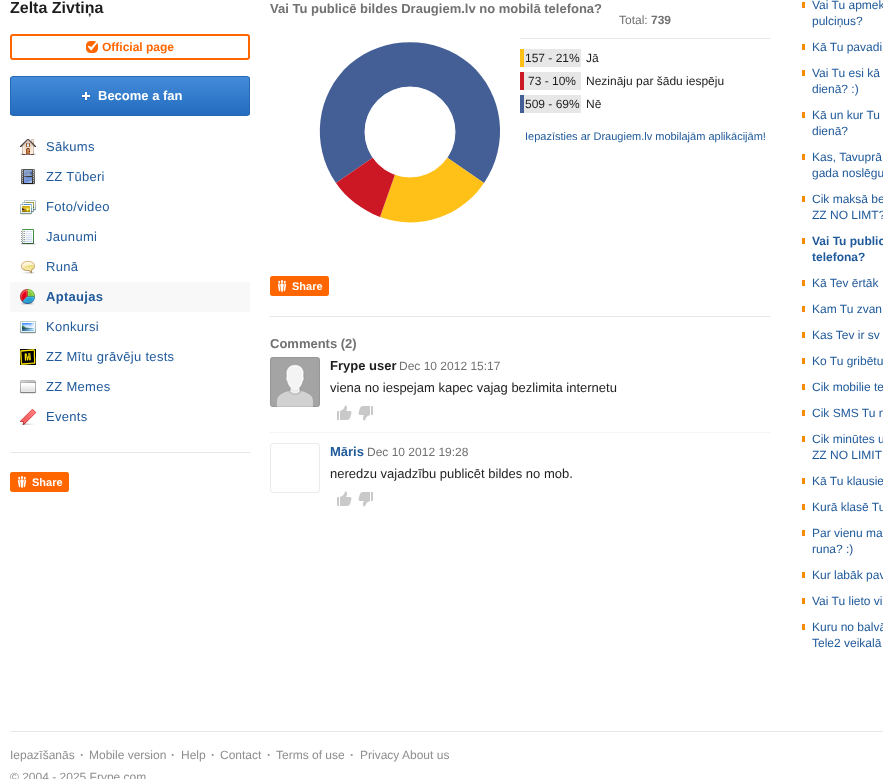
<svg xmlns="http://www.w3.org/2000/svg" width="883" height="779">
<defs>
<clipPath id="clip1"><rect x="10" y="76" width="240" height="40"/></clipPath>
<clipPath id="clip2"><rect x="10" y="76" width="240" height="40" rx="3"/></clipPath>
<linearGradient id="g1" gradientUnits="userSpaceOnUse" x1="130" y1="77" x2="130" y2="115"><stop offset="0" stop-color="#448cd9"/><stop offset="1" stop-color="#236cbf"/></linearGradient>
</defs>
<rect width="100%" height="100%" fill="#fff"/>
<text x="10" y="13" style="font-family:Liberation Sans;font-size:16px;font-weight:bold;fill:#1e1e1e">Zelta Zivtiņa</text>
<rect x="11" y="35" width="238" height="24" rx="2" fill="none" stroke="#f60" stroke-width="2"/>
<image x="86" y="41" width="12" height="12" href="media/1.png"/>
<text x="102" y="51" style="font-family:Liberation Sans;font-size:12px;font-weight:bold;fill:#f60">Official page</text>
<g clip-path="url(#clip1)">
<path d="M10 113c0 2 1 4 3 4h234c2 0 3-2 3-4c0 2-1 3-3 3h-234c-2 0-3-1-3-3z" fill="#ebebeb"/>
</g>
<g clip-path="url(#clip2)">
<rect x="10" y="77" width="240" height="38" fill="url(#g1)"/>
</g>
<rect x="10.5" y="76.5" width="239" height="39" rx="2.5" fill="none" stroke="#2668b3"/>
<image x="82" y="92" width="8" height="9" href="media/2.png"/>
<text x="98" y="100" style="font-family:Liberation Sans;font-size:13px;font-weight:bold;fill:#fff">Become a fan</text>
<image x="20" y="139" width="16" height="16" href="media/3.png"/>
<text x="46" y="151" style="font-family:Liberation Sans;font-size:13px;letter-spacing:0.3px;fill:#205a9a">Sākums</text>
<image x="21" y="169" width="14" height="16" href="media/4.png"/>
<text x="46" y="181" style="font-family:Liberation Sans;font-size:13px;letter-spacing:0.3px;fill:#205a9a">ZZ Tūberi</text>
<image x="20" y="200" width="16" height="15" href="media/5.png"/>
<text x="46" y="211" style="font-family:Liberation Sans;font-size:13px;letter-spacing:0.3px;fill:#205a9a">Foto/video</text>
<image x="20" y="229" width="16" height="16" href="media/6.png"/>
<text x="46" y="241" style="font-family:Liberation Sans;font-size:13px;letter-spacing:0.3px;fill:#205a9a">Jaunumi</text>
<image x="21" y="261" width="14" height="13" href="media/7.png"/>
<text x="46" y="271" style="font-family:Liberation Sans;font-size:13px;letter-spacing:0.3px;fill:#205a9a">Runā</text>
<rect x="10" y="282" width="240" height="30" fill="#f8f8f8"/>
<image x="20" y="289" width="15" height="16" href="media/8.png"/>
<text x="46" y="301" style="font-family:Liberation Sans;font-size:13px;font-weight:bold;letter-spacing:0.3px;fill:#205a9a">Aptaujas</text>
<image x="20" y="321" width="16" height="13" href="media/9.png"/>
<text x="46" y="331" style="font-family:Liberation Sans;font-size:13px;letter-spacing:0.3px;fill:#205a9a">Konkursi</text>
<image x="20" y="349" width="16" height="16" href="media/10.png"/>
<text x="46" y="361" style="font-family:Liberation Sans;font-size:13px;letter-spacing:0.3px;fill:#205a9a">ZZ Mītu grāvēju tests</text>
<image x="20" y="380" width="16" height="14" href="media/11.png"/>
<text x="46" y="391" style="font-family:Liberation Sans;font-size:13px;letter-spacing:0.3px;fill:#205a9a">ZZ Memes</text>
<image x="20" y="409" width="16" height="16" href="media/12.png"/>
<text x="46" y="421" style="font-family:Liberation Sans;font-size:13px;letter-spacing:0.3px;fill:#205a9a">Events</text>
<rect x="10" y="452" width="240" height="1" fill="#e7e7e7"/>
<rect x="10" y="472" width="59" height="20" rx="3" fill="#f60"/>
<rect x="10.5" y="472.5" width="58" height="19" rx="2.5" fill="none" stroke="#f60"/>
<image x="17" y="476" width="10" height="12" href="media/13.png"/>
<text x="32" y="486" style="font-family:Liberation Sans;font-size:11px;font-weight:bold;fill:#fff">Share</text>
<text x="270" y="13" style="font-family:Liberation Sans;font-size:13px;font-weight:bold;fill:#717171">Vai Tu publicē bildes Draugiem.lv no mobilā telefona?</text>
<text x="619" y="24" style="font-family:Liberation Sans;font-size:12px;fill:#717171">Total:</text>
<text x="651" y="24" style="font-family:Liberation Sans;font-size:12px;font-weight:bold;fill:#717171">739</text>
<path d="M410 132l-74 51c-26-38-20-89 14-119c34-29 86-29 120 0c34 30 40 81 14 119z" fill="#445f96"/>
<path d="M410 132l74 51c-23 34-66 48-104 34z" fill="#ffc018"/>
<path d="M410 132l-30 85c-18-7-34-19-44-34z" fill="#cc1825"/>
<circle cx="410" cy="132" r="45" fill="#fff" stroke="#fff"/>
<rect x="520" y="38" width="250" height="1" fill="#e7e7e7"/>
<rect x="524" y="49" width="57" height="18" fill="#e7e7e7"/>
<rect x="520" y="49" width="4" height="18" fill="#ffc018"/>
<text x="525" y="62" style="font-family:Liberation Sans;font-size:12px;fill:#1e1e1e">157 - 21%</text>
<text x="586" y="62" style="font-family:Liberation Sans;font-size:12px;fill:#1e1e1e">Jā</text>
<rect x="524" y="72" width="57" height="18" fill="#e7e7e7"/>
<rect x="520" y="72" width="4" height="18" fill="#cc1825"/>
<text x="528" y="85" style="font-family:Liberation Sans;font-size:12px;fill:#1e1e1e">73 - 10%</text>
<text x="586" y="85" style="font-family:Liberation Sans;font-size:12px;fill:#1e1e1e">Nezināju par šādu iespēju</text>
<rect x="524" y="95" width="57" height="18" fill="#e7e7e7"/>
<rect x="520" y="95" width="4" height="18" fill="#445f96"/>
<text x="525" y="108" style="font-family:Liberation Sans;font-size:12px;fill:#1e1e1e">509 - 69%</text>
<text x="586" y="108" style="font-family:Liberation Sans;font-size:12px;fill:#1e1e1e">Nē</text>
<text x="525" y="140" style="font-family:Liberation Sans;font-size:11px;fill:#205a9a">Iepazīsties ar Draugiem.lv mobilajām aplikācijām!</text>
<rect x="270" y="276" width="59" height="20" rx="3" fill="#f60"/>
<rect x="270.5" y="276.5" width="58" height="19" rx="2.5" fill="none" stroke="#f60"/>
<image x="277" y="280" width="10" height="12" href="media/13.png"/>
<text x="292" y="290" style="font-family:Liberation Sans;font-size:11px;font-weight:bold;fill:#fff">Share</text>
<rect x="270" y="316" width="500" height="1" fill="#e7e7e7"/>
<text x="270" y="348" style="font-family:Liberation Sans;font-size:13px;font-weight:bold;fill:#717171">Comments (2)</text>
<image x="270" y="357" width="50" height="50" href="media/14.png"/>
<rect x="270.5" y="357.5" width="49" height="49" rx="2.5" fill="none" stroke="#00000014"/>
<text x="330" y="370" style="font-family:Liberation Sans;font-size:13px;font-weight:bold;fill:#1e1e1e">Frype user</text>
<text x="399" y="370" style="font-family:Liberation Sans;font-size:12px;fill:#717171">Dec 10 2012 15:17</text>
<text x="330" y="392" style="font-family:Liberation Sans;font-size:13px;fill:#1e1e1e">viena no iespejam kapec vajag bezlimita internetu</text>
<image x="337" y="405" width="15" height="15" href="media/15.png"/>
<image x="358" y="406" width="15" height="15" href="media/16.png"/>
<rect x="270" y="432" width="500" height="1" fill="#f5f5f5"/>
<rect x="270.5" y="443.5" width="49" height="49" rx="2.5" fill="none" stroke="#ebebeb"/>
<text x="330" y="456" style="font-family:Liberation Sans;font-size:13px;font-weight:bold;fill:#205a9a">Māris</text>
<text x="367" y="456" style="font-family:Liberation Sans;font-size:12px;fill:#717171">Dec 10 2012 19:28</text>
<text x="330" y="478" style="font-family:Liberation Sans;font-size:13px;fill:#1e1e1e">neredzu vajadzību publicēt bildes no mob.</text>
<image x="337" y="491" width="15" height="15" href="media/15.png"/>
<image x="358" y="492" width="15" height="15" href="media/16.png"/>
<rect x="802" y="2" width="3" height="6" fill="#f68b00"/>
<text x="812" y="9" style="font-family:Liberation Sans;font-size:12px;fill:#205a9a">Vai Tu apmek</text>
<text x="812" y="25" style="font-family:Liberation Sans;font-size:12px;fill:#205a9a">pulciņus?</text>
<rect x="802" y="44" width="3" height="6" fill="#f68b00"/>
<text x="812" y="51" style="font-family:Liberation Sans;font-size:12px;fill:#205a9a">Kā Tu pavadi</text>
<rect x="802" y="70" width="3" height="6" fill="#f68b00"/>
<text x="812" y="77" style="font-family:Liberation Sans;font-size:12px;fill:#205a9a">Vai Tu esi kā</text>
<text x="812" y="93" style="font-family:Liberation Sans;font-size:12px;fill:#205a9a">dienā? :)</text>
<rect x="802" y="112" width="3" height="6" fill="#f68b00"/>
<text x="812" y="119" style="font-family:Liberation Sans;font-size:12px;fill:#205a9a">Kā un kur Tu</text>
<text x="812" y="135" style="font-family:Liberation Sans;font-size:12px;fill:#205a9a">dienā?</text>
<rect x="802" y="154" width="3" height="6" fill="#f68b00"/>
<text x="812" y="161" style="font-family:Liberation Sans;font-size:12px;fill:#205a9a">Kas, Tavuprā</text>
<text x="812" y="177" style="font-family:Liberation Sans;font-size:12px;fill:#205a9a">gada noslēgu</text>
<rect x="802" y="196" width="3" height="6" fill="#f68b00"/>
<text x="812" y="203" style="font-family:Liberation Sans;font-size:12px;fill:#205a9a">Cik maksā be</text>
<text x="812" y="219" style="font-family:Liberation Sans;font-size:12px;fill:#205a9a">ZZ NO LIMT?</text>
<rect x="802" y="238" width="3" height="6" fill="#f68b00"/>
<text x="812" y="245" style="font-family:Liberation Sans;font-size:12px;font-weight:bold;fill:#205a9a">Vai Tu public</text>
<text x="812" y="261" style="font-family:Liberation Sans;font-size:12px;font-weight:bold;fill:#205a9a">telefona?</text>
<rect x="802" y="280" width="3" height="6" fill="#f68b00"/>
<text x="812" y="287" style="font-family:Liberation Sans;font-size:12px;fill:#205a9a">Kā Tev ērtāk</text>
<rect x="802" y="306" width="3" height="6" fill="#f68b00"/>
<text x="812" y="313" style="font-family:Liberation Sans;font-size:12px;fill:#205a9a">Kam Tu zvan</text>
<rect x="802" y="332" width="3" height="6" fill="#f68b00"/>
<text x="812" y="339" style="font-family:Liberation Sans;font-size:12px;fill:#205a9a">Kas Tev ir sv</text>
<rect x="802" y="358" width="3" height="6" fill="#f68b00"/>
<text x="812" y="365" style="font-family:Liberation Sans;font-size:12px;fill:#205a9a">Ko Tu gribētu</text>
<rect x="802" y="384" width="3" height="6" fill="#f68b00"/>
<text x="812" y="391" style="font-family:Liberation Sans;font-size:12px;fill:#205a9a">Cik mobilie te</text>
<rect x="802" y="410" width="3" height="6" fill="#f68b00"/>
<text x="812" y="417" style="font-family:Liberation Sans;font-size:12px;fill:#205a9a">Cik SMS Tu n</text>
<rect x="802" y="436" width="3" height="6" fill="#f68b00"/>
<text x="812" y="443" style="font-family:Liberation Sans;font-size:12px;fill:#205a9a">Cik minūtes u</text>
<text x="812" y="459" style="font-family:Liberation Sans;font-size:12px;fill:#205a9a">ZZ NO LIMIT</text>
<rect x="802" y="478" width="3" height="6" fill="#f68b00"/>
<text x="812" y="485" style="font-family:Liberation Sans;font-size:12px;fill:#205a9a">Kā Tu klausie</text>
<rect x="802" y="504" width="3" height="6" fill="#f68b00"/>
<text x="812" y="511" style="font-family:Liberation Sans;font-size:12px;fill:#205a9a">Kurā klasē Tu</text>
<rect x="802" y="530" width="3" height="6" fill="#f68b00"/>
<text x="812" y="537" style="font-family:Liberation Sans;font-size:12px;fill:#205a9a">Par vienu ma</text>
<text x="812" y="553" style="font-family:Liberation Sans;font-size:12px;fill:#205a9a">runa? :)</text>
<rect x="802" y="572" width="3" height="6" fill="#f68b00"/>
<text x="812" y="579" style="font-family:Liberation Sans;font-size:12px;fill:#205a9a">Kur labāk pav</text>
<rect x="802" y="598" width="3" height="6" fill="#f68b00"/>
<text x="812" y="605" style="font-family:Liberation Sans;font-size:12px;fill:#205a9a">Vai Tu lieto vi</text>
<rect x="802" y="624" width="3" height="6" fill="#f68b00"/>
<text x="812" y="631" style="font-family:Liberation Sans;font-size:12px;fill:#205a9a">Kuru no balvā</text>
<text x="812" y="647" style="font-family:Liberation Sans;font-size:12px;fill:#205a9a">Tele2 veikalā</text>
<rect x="10" y="731" width="873" height="1" fill="#e7e7e7"/>
<text x="10" y="759" style="font-family:Liberation Sans;font-size:12px;fill:#8e8e8e">Iepazīšanās</text>
<text x="80" y="759" style="font-family:Liberation Sans;font-size:12px;font-weight:bold;fill:#8e8e8e">·</text>
<text x="89" y="759" style="font-family:Liberation Sans;font-size:12px;fill:#8e8e8e">Mobile version</text>
<text x="171" y="759" style="font-family:Liberation Sans;font-size:12px;font-weight:bold;fill:#8e8e8e">·</text>
<text x="181" y="759" style="font-family:Liberation Sans;font-size:12px;fill:#8e8e8e">Help</text>
<text x="211" y="759" style="font-family:Liberation Sans;font-size:12px;font-weight:bold;fill:#8e8e8e">·</text>
<text x="220" y="759" style="font-family:Liberation Sans;font-size:12px;fill:#8e8e8e">Contact</text>
<text x="267" y="759" style="font-family:Liberation Sans;font-size:12px;font-weight:bold;fill:#8e8e8e">·</text>
<text x="276" y="759" style="font-family:Liberation Sans;font-size:12px;fill:#8e8e8e">Terms of use</text>
<text x="350" y="759" style="font-family:Liberation Sans;font-size:12px;font-weight:bold;fill:#8e8e8e">·</text>
<text x="360" y="759" style="font-family:Liberation Sans;font-size:12px;fill:#8e8e8e">Privacy About us</text>
<text x="10" y="781" style="font-family:Liberation Sans;font-size:12px;fill:#8e8e8e">© 2004 - 2025 Frype.com</text>
</svg>
